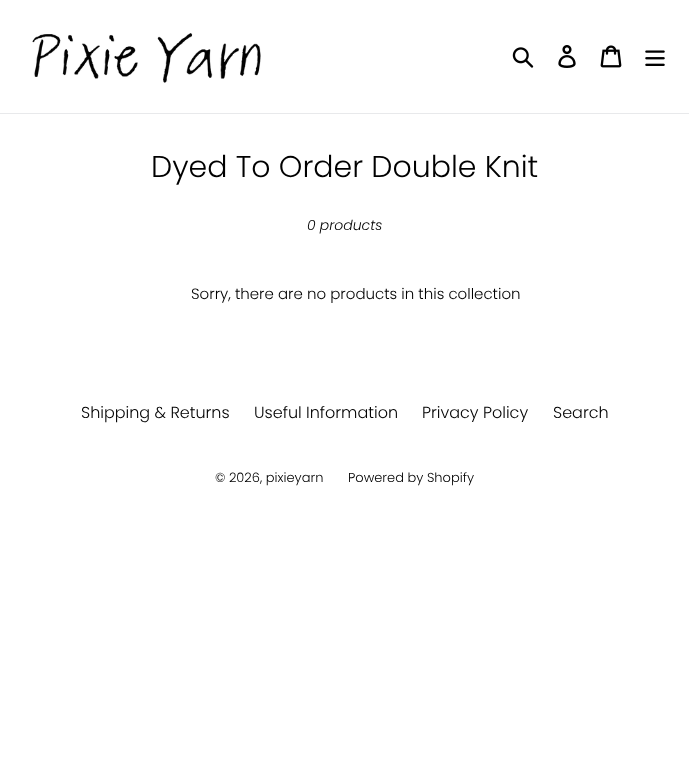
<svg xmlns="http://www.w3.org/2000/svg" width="689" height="772">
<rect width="100%" height="100%" fill="#fff"/>
<rect y="113" width="689" height="1" fill="#e8e9eb"/>
<image x="32" y="33" width="229" height="50" href="media/1.png"/>
<image x="512" y="47" width="22" height="21" href="media/2.png"/>
<image x="558" y="45" width="18" height="23" href="media/3.png"/>
<image x="600" y="45" width="22" height="23" href="media/4.png"/>
<image x="645" y="50" width="20" height="16" href="media/5.png"/>
<text x="151" y="177" style="font-family:Poppins;font-size:30px;font-weight:300;fill:#000">Dyed To Order Double Knit</text>
<text x="307" y="230" style="font-family:Poppins;font-size:14px;font-weight:300;font-style:italic;fill:#000">0 products</text>
<text x="191" y="299" style="font-family:Poppins;font-size:15px;font-weight:300;fill:#000">Sorry, there are no products in this collection</text>
<text x="81" y="418" style="font-family:Poppins;font-size:16px;font-weight:300;fill:#000">Shipping &amp; Returns</text>
<text x="254" y="418" style="font-family:Poppins;font-size:16px;font-weight:300;fill:#000">Useful Information</text>
<text x="422" y="418" style="font-family:Poppins;font-size:16px;font-weight:300;fill:#000">Privacy Policy</text>
<text x="553" y="418" style="font-family:Poppins;font-size:16px;font-weight:300;fill:#000">Search</text>
<text x="215" y="482" style="font-family:Poppins;font-size:13px;font-weight:300;fill:#000">© 2026, pixieyarn</text>
<text x="348" y="482" style="font-family:Poppins;font-size:13px;font-weight:300;fill:#000">Powered by Shopify</text>
</svg>
